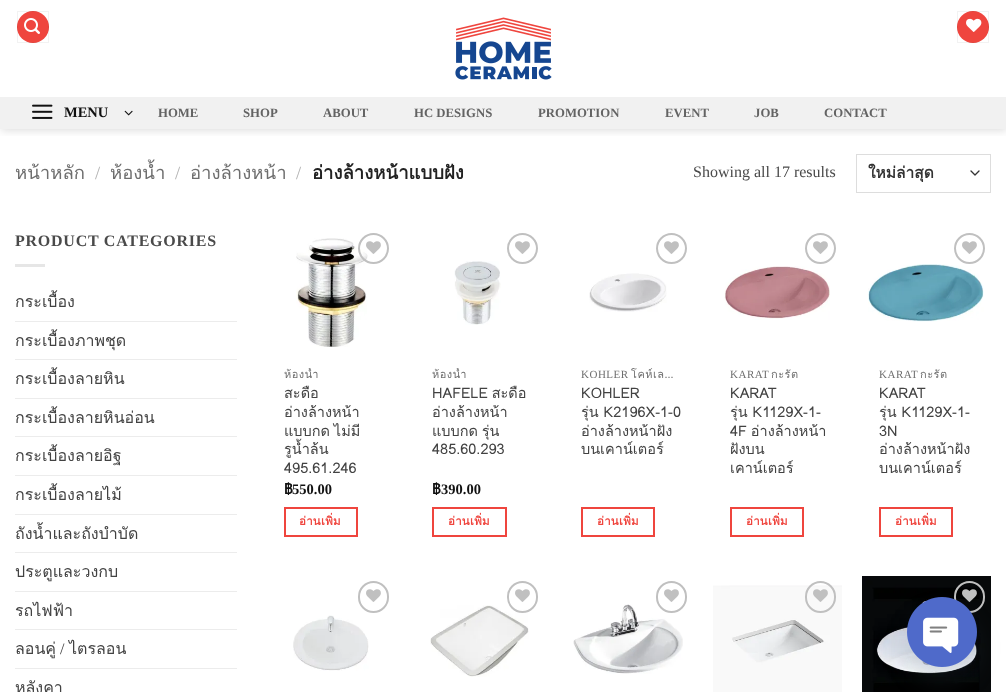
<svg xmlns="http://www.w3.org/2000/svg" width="1006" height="692">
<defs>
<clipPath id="clip1"><rect x="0" y="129" width="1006" height="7"/></clipPath>
<clipPath id="clip2"><rect x="284" y="368" width="94" height="13"/></clipPath>
<clipPath id="clip3"><rect x="432" y="368" width="95" height="13"/></clipPath>
</defs>
<rect width="100%" height="100%" fill="#fff"/>
<g clip-path="url(#clip1)">
<rect x="1" y="1" width="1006" height="129" fill="#00000026" filter="blur(5px)"/>
</g>
<circle cx="33" cy="27" r="16" fill="#ef453e"/>
<rect x="17.5" y="11.5" width="31" height="31" fill="none" stroke="#0000000d"/>
<image x="24" y="18" width="16" height="16" href="media/1.png"/>
<image x="455" y="17" width="97" height="63" href="media/2.png"/>
<circle cx="973" cy="27" r="16" fill="#ef453e"/>
<rect x="957.5" y="11.5" width="31" height="31" fill="none" stroke="#0000000d"/>
<image x="966" y="18" width="16" height="14" href="media/3.png"/>
<rect y="97" width="1006" height="32" fill="#f1f1f1"/>
<image x="32" y="104" width="21" height="15" href="media/4.png"/>
<text x="64" y="117" style="font-family:Liberation Serif;font-size:14.5px;font-weight:bold;fill:#111">MENU</text>
<image x="124" y="110" width="9" height="6" href="media/5.png"/>
<text x="158" y="117" style="font-family:Liberation Serif;font-size:12.75px;font-weight:bold;fill:#636363">HOME</text>
<text x="243" y="117" style="font-family:Liberation Serif;font-size:12.75px;font-weight:bold;fill:#636363">SHOP</text>
<text x="323" y="117" style="font-family:Liberation Serif;font-size:12.75px;font-weight:bold;fill:#636363">ABOUT</text>
<text x="414" y="117" style="font-family:Liberation Serif;font-size:12.75px;font-weight:bold;fill:#636363">HC DESIGNS</text>
<text x="538" y="117" style="font-family:Liberation Serif;font-size:12.75px;font-weight:bold;fill:#636363">PROMOTION</text>
<text x="665" y="117" style="font-family:Liberation Serif;font-size:12.75px;font-weight:bold;fill:#636363">EVENT</text>
<text x="754" y="117" style="font-family:Liberation Serif;font-size:12.75px;font-weight:bold;fill:#636363">JOB</text>
<text x="824" y="117" style="font-family:Liberation Serif;font-size:12.75px;font-weight:bold;fill:#636363">CONTACT</text>
<text x="15" y="179" style="font-family:Loma;font-size:18.5px;fill:#6e6e6e">หน้าหลัก</text>
<text x="95" y="179" style="font-family:Liberation Serif;font-size:18.5px;fill:#b2b2b2">/</text>
<text x="110" y="179" style="font-family:Loma;font-size:18.5px;fill:#6e6e6e">ห้องน้ำ</text>
<text x="175" y="179" style="font-family:Liberation Serif;font-size:18.5px;fill:#b2b2b2">/</text>
<text x="190" y="179" style="font-family:Loma;font-size:18.5px;fill:#6e6e6e">อ่างล้างหน้า</text>
<text x="296" y="179" style="font-family:Liberation Serif;font-size:18.5px;fill:#b2b2b2">/</text>
<text x="312" y="179" style="font-family:Loma;font-size:18.5px;font-weight:bold;fill:#222">อ่างล้างหน้าแบบฝัง</text>
<text x="693" y="177" style="font-family:Liberation Serif;font-size:16px;fill:#4a4a4a">Showing all 17 results</text>
<path d="M971 171l4 4l4-4" fill="none" stroke="#333" stroke-width="1.3" stroke-linecap="round" stroke-linejoin="round"/>
<rect x="856.5" y="154.5" width="134" height="38" fill="none" stroke="#ddd"/>
<text x="868" y="178" style="font-family:Loma;font-size:15.5px;font-weight:bold;fill:#333">ใหม่ล่าสุด</text>
<text x="15" y="246" style="font-family:Liberation Serif;font-size:16px;font-weight:bold;letter-spacing:0.75px;fill:#4a4a4a">PRODUCT CATEGORIES</text>
<rect x="15" y="264" width="30" height="3" fill="#e6e6e6"/>
<text x="15" y="307" style="font-family:Loma;font-size:16px;fill:#424242">กระเบื้อง</text>
<rect x="15" y="321" width="222" height="1" fill="#ececec"/>
<text x="15" y="346" style="font-family:Loma;font-size:16px;fill:#424242">กระเบื้องภาพชุด</text>
<rect x="15" y="359" width="222" height="1" fill="#ececec"/>
<text x="15" y="384" style="font-family:Loma;font-size:16px;fill:#424242">กระเบื้องลายหิน</text>
<rect x="15" y="398" width="222" height="1" fill="#ececec"/>
<text x="15" y="423" style="font-family:Loma;font-size:16px;fill:#424242">กระเบื้องลายหินอ่อน</text>
<rect x="15" y="436" width="222" height="1" fill="#ececec"/>
<text x="15" y="461" style="font-family:Loma;font-size:16px;fill:#424242">กระเบื้องลายอิฐ</text>
<rect x="15" y="475" width="222" height="1" fill="#ececec"/>
<text x="15" y="500" style="font-family:Loma;font-size:16px;fill:#424242">กระเบื้องลายไม้</text>
<rect x="15" y="514" width="222" height="1" fill="#ececec"/>
<text x="15" y="539" style="font-family:Loma;font-size:16px;fill:#424242">ถังน้ำและถังบำบัด</text>
<rect x="15" y="552" width="222" height="1" fill="#ececec"/>
<text x="15" y="577" style="font-family:Loma;font-size:16px;fill:#424242">ประตูและวงกบ</text>
<rect x="15" y="591" width="222" height="1" fill="#ececec"/>
<text x="15" y="616" style="font-family:Loma;font-size:16px;fill:#424242">รถไฟฟ้า</text>
<rect x="15" y="629" width="222" height="1" fill="#ececec"/>
<text x="15" y="654" style="font-family:Loma;font-size:16px;fill:#424242">ลอนคู่</text>
<text x="60" y="654" style="font-family:Liberation Serif;font-size:16px;fill:#424242">/</text>
<text x="69" y="654" style="font-family:Loma;font-size:16px;fill:#424242">ไตรลอน</text>
<rect x="15" y="668" width="222" height="1" fill="#ececec"/>
<text x="15" y="693" style="font-family:Loma;font-size:16px;fill:#424242">หลังคา</text>
<image x="296" y="238" width="72" height="109" href="media/6.png"/>
<circle cx="373.5" cy="248.5" r="14.5" fill="none" stroke="#c0c0c0" stroke-width="2"/>
<image x="366" y="241" width="15" height="13" href="media/7.png"/>
<g clip-path="url(#clip2)">
<text x="284" y="378" style="font-family:Loma;font-size:11px;letter-spacing:0.5px;fill:#6e6e6e">ห้องน้ำ</text>
</g>
<text x="284" y="398" style="font-family:Loma;font-size:14.5px;fill:#424242">สะดือ</text>
<text x="284" y="417" style="font-family:Loma;font-size:14.5px;fill:#424242">อ่างล้างหน้า</text>
<text x="284" y="436" word-spacing="-1" style="font-family:Loma;font-size:14.5px;fill:#424242">แบบกด ไม่มี</text>
<text x="284" y="454" style="font-family:Loma;font-size:14.5px;fill:#424242">รูนํ้าล้น</text>
<text x="284" y="473" style="font-family:Loma;font-size:14.5px;fill:#424242">495.61.246</text>
<text x="284" y="494" style="font-family:Loma;font-size:14.5px;font-weight:bold;fill:#111">฿</text>
<text x="292" y="494" style="font-family:Liberation Serif;font-size:14.5px;font-weight:bold;fill:#111">550.00</text>
<rect x="285" y="508" width="72" height="28" fill="none" stroke="#ef453e" stroke-width="2"/>
<text x="299" y="525" style="font-family:Loma;font-size:11.5px;font-weight:bold;letter-spacing:0.25px;fill:#ef453e">อ่านเพิ่ม</text>
<circle cx="522.5" cy="248.5" r="14.5" fill="none" stroke="#c0c0c0" stroke-width="2"/>
<image x="515" y="241" width="15" height="13" href="media/8.png"/>
<image x="454" y="261" width="47" height="64" href="media/9.png"/>
<g clip-path="url(#clip3)">
<text x="432" y="378" style="font-family:Loma;font-size:11px;letter-spacing:0.5px;fill:#6e6e6e">ห้องน้ำ</text>
</g>
<text x="432" y="398" word-spacing="-1" style="font-family:Loma;font-size:14.5px;fill:#424242">HAFELE สะดือ</text>
<text x="432" y="417" style="font-family:Loma;font-size:14.5px;fill:#424242">อ่างล้างหน้า</text>
<text x="432" y="436" word-spacing="-1" style="font-family:Loma;font-size:14.5px;fill:#424242">แบบกด รุ่น</text>
<text x="432" y="454" style="font-family:Loma;font-size:14.5px;fill:#424242">485.60.293</text>
<text x="432" y="494" style="font-family:Loma;font-size:14.5px;font-weight:bold;fill:#111">฿</text>
<text x="441" y="494" style="font-family:Liberation Serif;font-size:14.5px;font-weight:bold;fill:#111">390.00</text>
<rect x="433" y="508" width="73" height="28" fill="none" stroke="#ef453e" stroke-width="2"/>
<text x="448" y="525" style="font-family:Loma;font-size:11.5px;font-weight:bold;letter-spacing:0.25px;fill:#ef453e">อ่านเพิ่ม</text>
<circle cx="671.5" cy="248.5" r="14.5" fill="none" stroke="#c0c0c0" stroke-width="2"/>
<image x="664" y="241" width="15" height="13" href="media/8.png"/>
<image x="589" y="273" width="78" height="39" href="media/10.png"/>
<text x="581" y="378" style="font-family:Liberation Serif;font-size:11px;letter-spacing:0.5px;fill:#6e6e6e">KOHLER</text>
<text x="631" y="378" style="font-family:Loma;font-size:11px;letter-spacing:0.5px;fill:#6e6e6e">โคห์เล…</text>
<text x="581" y="398" style="font-family:Loma;font-size:14.5px;fill:#424242">KOHLER</text>
<text x="581" y="417" style="font-family:Loma;font-size:14.5px;fill:#424242">รุ่น K2196X-1-0</text>
<text x="581" y="436" style="font-family:Loma;font-size:14.5px;fill:#424242">อ่างล้างหน้าฝัง</text>
<text x="581" y="454" style="font-family:Loma;font-size:14.5px;fill:#424242">บนเคาน์เตอร์</text>
<rect x="582" y="508" width="72" height="28" fill="none" stroke="#ef453e" stroke-width="2"/>
<text x="597" y="525" style="font-family:Loma;font-size:11.5px;font-weight:bold;letter-spacing:0.25px;fill:#ef453e">อ่านเพิ่ม</text>
<circle cx="820.5" cy="248.5" r="14.5" fill="none" stroke="#c0c0c0" stroke-width="2"/>
<image x="813" y="241" width="15" height="13" href="media/8.png"/>
<image x="724" y="266" width="106" height="54" href="media/11.png"/>
<text x="730" y="378" style="font-family:Liberation Serif;font-size:11px;letter-spacing:0.5px;fill:#6e6e6e">KARAT</text>
<text x="771" y="378" style="font-family:Loma;font-size:11px;letter-spacing:0.5px;fill:#6e6e6e">กะรัต</text>
<text x="730" y="398" style="font-family:Loma;font-size:14.5px;fill:#424242">KARAT</text>
<text x="730" y="417" style="font-family:Loma;font-size:14.5px;fill:#424242">รุ่น K1129X-1-</text>
<text x="730" y="436" word-spacing="-1" style="font-family:Loma;font-size:14.5px;fill:#424242">4F อ่างล้างหน้า</text>
<text x="730" y="454" style="font-family:Loma;font-size:14.5px;fill:#424242">ฝังบน</text>
<text x="730" y="473" style="font-family:Loma;font-size:14.5px;fill:#424242">เคาน์เตอร์</text>
<rect x="731" y="508" width="72" height="28" fill="none" stroke="#ef453e" stroke-width="2"/>
<text x="746" y="525" style="font-family:Loma;font-size:11.5px;font-weight:bold;letter-spacing:0.25px;fill:#ef453e">อ่านเพิ่ม</text>
<circle cx="969.5" cy="248.5" r="14.5" fill="none" stroke="#c0c0c0" stroke-width="2"/>
<image x="962" y="241" width="15" height="13" href="media/8.png"/>
<image x="868" y="264" width="116" height="58" href="media/12.png"/>
<text x="879" y="378" style="font-family:Liberation Serif;font-size:11px;letter-spacing:0.5px;fill:#6e6e6e">KARAT</text>
<text x="920" y="378" style="font-family:Loma;font-size:11px;letter-spacing:0.5px;fill:#6e6e6e">กะรัต</text>
<text x="879" y="398" style="font-family:Loma;font-size:14.5px;fill:#424242">KARAT</text>
<text x="879" y="417" style="font-family:Loma;font-size:14.5px;fill:#424242">รุ่น K1129X-1-</text>
<text x="879" y="436" style="font-family:Loma;font-size:14.5px;fill:#424242">3N</text>
<text x="879" y="454" style="font-family:Loma;font-size:14.5px;fill:#424242">อ่างล้างหน้าฝัง</text>
<text x="879" y="473" style="font-family:Loma;font-size:14.5px;fill:#424242">บนเคาน์เตอร์</text>
<rect x="880" y="508" width="72" height="28" fill="none" stroke="#ef453e" stroke-width="2"/>
<text x="895" y="525" style="font-family:Loma;font-size:11.5px;font-weight:bold;letter-spacing:0.25px;fill:#ef453e">อ่านเพิ่ม</text>
<rect x="359" y="582" width="29" height="30" rx="14.5" fill="none" stroke="#c0c0c0" stroke-width="2"/>
<image x="366" y="589" width="15" height="13" href="media/8.png"/>
<image x="293" y="615" width="76" height="56" href="media/13.png"/>
<image x="430" y="605" width="99" height="72" href="media/14.png"/>
<rect x="508" y="582" width="29" height="30" rx="14.5" fill="none" stroke="#c0c0c0" stroke-width="2"/>
<image x="515" y="589" width="15" height="13" href="media/8.png"/>
<image x="573" y="604" width="110" height="70" href="media/15.png"/>
<rect x="657" y="582" width="29" height="30" rx="14.5" fill="none" stroke="#c0c0c0" stroke-width="2"/>
<image x="664" y="589" width="15" height="13" href="media/8.png"/>
<image x="713" y="585" width="129" height="107" href="media/17.png"/>
<rect x="806" y="582" width="29" height="30" rx="14.5" fill="none" stroke="#c0c0c0" stroke-width="2"/>
<image x="813" y="589" width="15" height="13" href="media/16.png"/>
<image x="862" y="576" width="129" height="116" href="media/18.png"/>
<rect x="955" y="582" width="29" height="30" rx="14.5" fill="none" stroke="#c0c0c0" stroke-width="2"/>
<image x="962" y="589" width="15" height="13" href="media/19.png"/>
<rect x="907" y="613" width="70" height="70" rx="35" fill="#49687e29" filter="blur(12px)"/>
<image x="907" y="597" width="70" height="70" href="media/20.png"/>
</svg>
